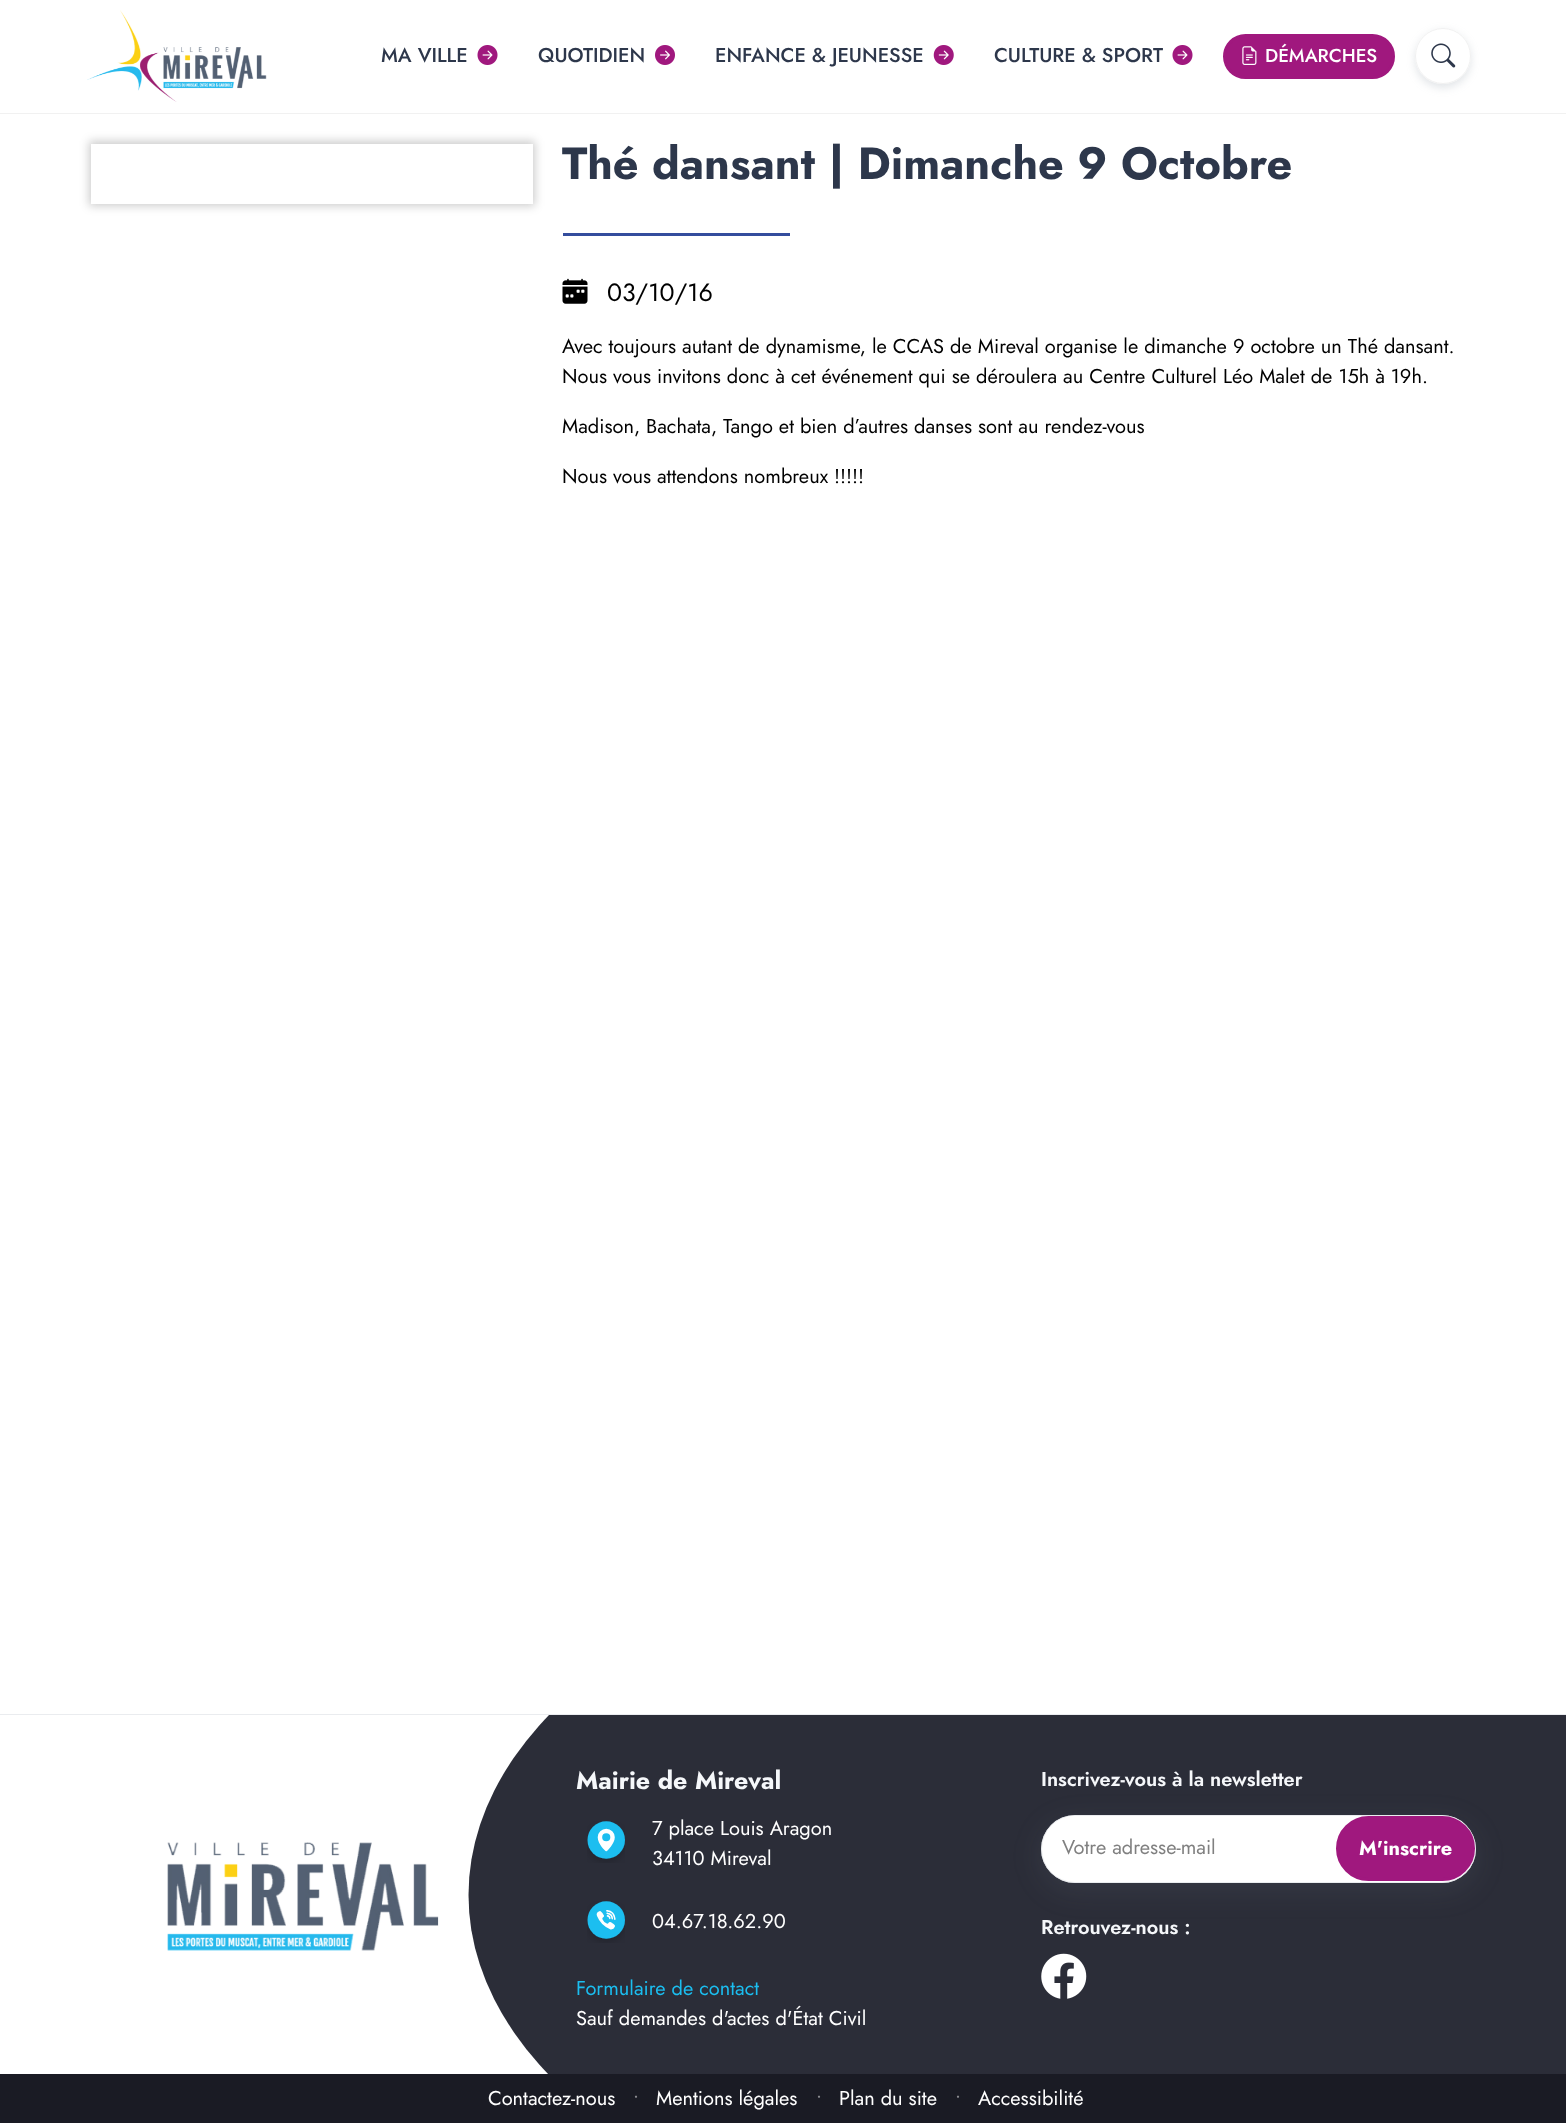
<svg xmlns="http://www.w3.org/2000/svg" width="1566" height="2123">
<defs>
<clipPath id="clip1"><path d="M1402 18h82v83h-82zm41 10c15.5 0 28 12.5 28 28c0 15.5-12.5 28-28 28c-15.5 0-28-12.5-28-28c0-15.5 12.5-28 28-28z" clip-rule="evenodd"/></clipPath>
<clipPath id="clip2"><path d="M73 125h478v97h-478zm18 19h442v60h-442z" clip-rule="evenodd"/></clipPath>
<clipPath id="clip3"><rect y="1715" width="1566" height="359"/></clipPath>
</defs>
<rect width="100%" height="100%" fill="#fff"/>
<rect y="113" width="1566" height="1" fill="#f1f1f1"/>
<image x="87" y="10" width="180" height="92" href="media/1.png"/>
<text x="381" y="62" style="font-family:Jost;font-size:20px;font-weight:500;fill:#2d374b">MA VILLE</text>
<image x="477" y="45" width="21" height="20" href="media/2.png"/>
<text x="538" y="62" style="font-family:Jost;font-size:20px;font-weight:500;fill:#2d374b">QUOTIDIEN</text>
<image x="655" y="45" width="20" height="20" href="media/3.png"/>
<text x="715" y="62" style="font-family:Jost;font-size:20px;font-weight:500;fill:#2d374b">ENFANCE &amp; JEUNESSE</text>
<image x="933" y="45" width="21" height="20" href="media/4.png"/>
<text x="994" y="62" style="font-family:Jost;font-size:20px;font-weight:500;fill:#2d374b">CULTURE &amp; SPORT</text>
<image x="1172" y="45" width="21" height="20" href="media/2.png"/>
<rect x="1224.5" y="35.5" width="169" height="42" rx="21" fill="#a0187e" stroke="#a0187e" stroke-width="3"/>
<image x="1242" y="46" width="15" height="19" href="media/5.png"/>
<text x="1265" y="62" style="font-family:Jost;font-size:18.75px;font-weight:500;fill:#fff">DÉMARCHES</text>
<g clip-path="url(#clip1)">
<rect x="1415" y="31" width="56" height="57" rx="28" fill="#8c98a440" filter="blur(4px)"/>
</g>
<circle cx="1443" cy="56" r="27.5" fill="none" stroke="#f1f1f1"/>
<image x="1431" y="43" width="25" height="25" href="media/6.png"/>
<g clip-path="url(#clip2)">
<rect x="89" y="141" width="446" height="65" fill="#00000033" filter="blur(5px)"/>
</g>
<text x="562" y="179" style="font-family:Jost;font-size:45px;font-weight:bold;fill:#2d374b">Thé dansant | Dimanche 9 Octobre</text>
<rect x="563" y="233" width="227" height="3" fill="#344d9d"/>
<image x="562" y="278" width="26" height="26" href="media/7.png"/>
<text x="607" y="301" style="font-family:Jost;font-size:25px;fill:#000">03/10/16</text>
<text x="562" y="353" style="font-family:Jost;font-size:20px;fill:#000">Avec toujours autant de dynamisme, le CCAS de Mireval organise le dimanche 9 octobre un Thé dansant.</text>
<text x="562" y="383" style="font-family:Jost;font-size:20px;fill:#000">Nous vous invitons donc à cet événement qui se déroulera au Centre Culturel Léo Malet de 15h à 19h.</text>
<text x="562" y="433" style="font-family:Jost;font-size:20px;fill:#000">Madison, Bachata, Tango et bien d’autres danses sont au rendez-vous</text>
<text x="562" y="483" style="font-family:Jost;font-size:20px;fill:#000">Nous vous attendons nombreux !!!!!</text>
<rect y="1714" width="1566" height="1" fill="#eaecef"/>
<image x="167" y="1842" width="272" height="109" href="media/8.png"/>
<g clip-path="url(#clip3)">
<ellipse cx="1066" cy="1895" rx="597.5" ry="359" fill="#2b2d38"/>
</g>
<text x="576" y="1789" style="font-family:Jost;font-size:25px;font-weight:bold;fill:#f5f7fa">Mairie de Mireval</text>
<image x="587" y="1821" width="38" height="42" href="media/9.png"/>
<text x="652" y="1835" style="font-family:Jost;font-size:20px;fill:#fff">7 place Louis Aragon</text>
<text x="652" y="1865" style="font-family:Jost;font-size:20px;fill:#fff">34110 Mireval</text>
<image x="587" y="1901" width="38" height="42" href="media/10.png"/>
<text x="652" y="1928" style="font-family:Jost;font-size:20px;fill:#fff">04.67.18.62.90</text>
<text x="576" y="1995" style="font-family:Jost;font-size:20px;fill:#1bbef0">Formulaire de contact</text>
<text x="576" y="2025" style="font-family:Jost;font-size:20px;fill:#fff">Sauf demandes d'actes d'État Civil</text>
<rect x="1041" y="1823" width="435" height="67" rx="33.5" fill="#8c98a41f" filter="blur(15px)"/>
<text x="1041" y="1786" style="font-family:Jost;font-size:20px;font-weight:600;fill:#f5f7fa">Inscrivez-vous à la newsletter</text>
<rect x="1041" y="1815" width="435" height="68" rx="34" fill="#fff"/>
<rect x="1041.5" y="1815.5" width="434" height="67" rx="33.5" fill="none" stroke="#dce0e599"/>
<rect x="1043" y="1816" width="293" height="63" rx="31.5" fill="#fff"/>
<text x="1062" y="1854" style="font-family:Jost;font-size:20px;fill:#808080">Votre adresse-mail</text>
<rect x="1337.5" y="1817.5" width="136" height="62" rx="31" fill="#a0187e" stroke="#a0187e" stroke-width="3"/>
<text x="1359" y="1855" style="font-family:Jost;font-size:20px;font-weight:bold;fill:#fff">M'inscrire</text>
<text x="1041" y="1934" style="font-family:Jost;font-size:20px;font-weight:600;fill:#f5f7fa">Retrouvez-nous :</text>
<image x="1041" y="1953" width="46" height="46" href="media/11.png"/>
<rect y="2074" width="1566" height="49" fill="#1a1b24"/>
<text x="488" y="2105" style="font-family:Jost;font-size:20px;fill:#fff">Contactez-nous</text>
<text x="633" y="2105" style="font-family:Jost;font-size:20px;fill:#8d8d92">•</text>
<text x="656" y="2105" style="font-family:Jost;font-size:20px;fill:#fff">Mentions légales</text>
<text x="816" y="2105" style="font-family:Jost;font-size:20px;fill:#8d8d92">•</text>
<text x="839" y="2105" style="font-family:Jost;font-size:20px;fill:#fff">Plan du site</text>
<text x="955" y="2105" style="font-family:Jost;font-size:20px;fill:#8d8d92">•</text>
<text x="978" y="2105" style="font-family:Jost;font-size:20px;fill:#fff">Accessibilité</text>
</svg>
